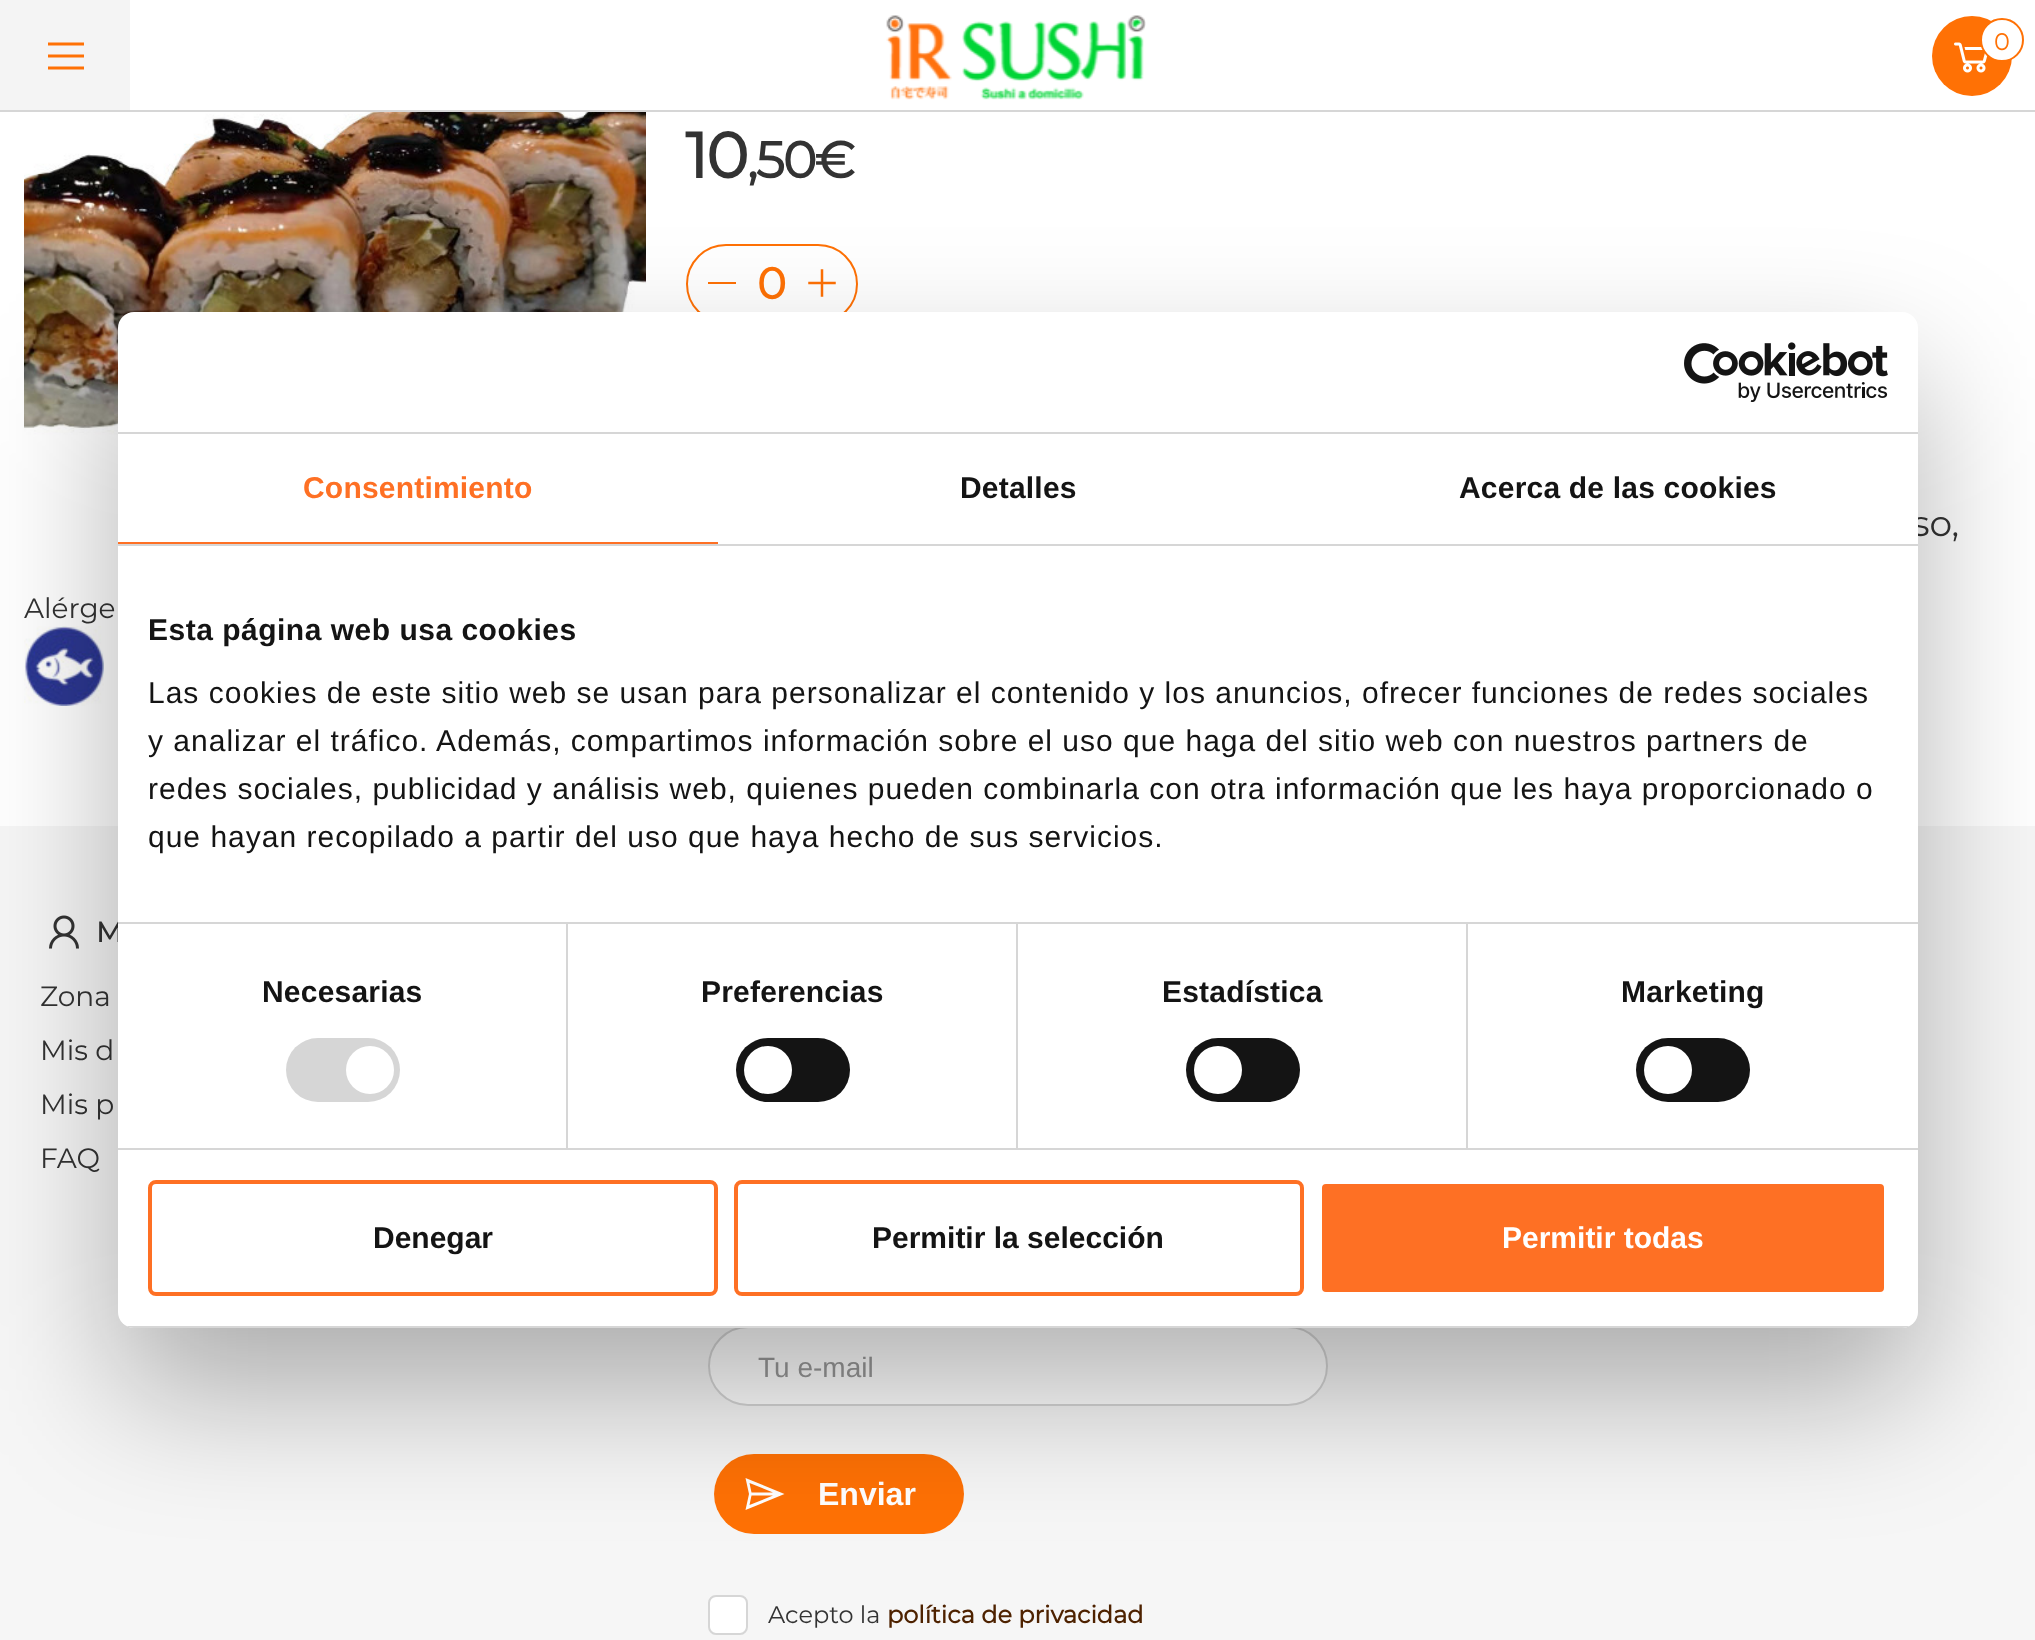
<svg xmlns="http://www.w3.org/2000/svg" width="2035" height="1640">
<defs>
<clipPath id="clip1"><rect x="118" y="312" width="1800" height="1016" rx="16"/></clipPath>
</defs>
<rect width="100%" height="100%" fill="#fff"/>
<rect width="130" height="110" fill="#f4f4f4"/>
<path d="M48 42.5v3h36v-3zm0 12v3h36v-3zm0 12v3h36v-3z" fill="#ff7105"/>
<rect y="110" width="2035" height="2" fill="#d6d6d6"/>
<image x="886" y="15" width="260" height="85" href="media/1.png"/>
<circle cx="1972" cy="56" r="40" fill="#ff7105"/>
<image x="1954" y="42" width="34" height="31" href="media/2.png"/>
<circle cx="2002" cy="40" r="21" fill="#fff" stroke="#ff7105" stroke-width="2"/>
<text x="1994" y="50" style="font-family:Montserrat;font-size:24px;font-weight:100;fill:#ff7105">0</text>
<text x="685" y="178" style="font-family:Montserrat;font-size:64px;font-weight:bold;letter-spacing:-2px;fill:#333">10</text>
<text x="747" y="178" style="font-family:Montserrat;font-size:51px;font-weight:bold;letter-spacing:-2px;fill:#333">,50€</text>
<rect x="687" y="245" width="170" height="78" rx="39" fill="none" stroke="#ff7105" stroke-width="2"/>
<rect x="708" y="282" width="28" height="2" fill="#ff7105"/>
<text x="757" y="299" style="font-family:Montserrat;font-size:44px;font-weight:bold;fill:#ff7105">0</text>
<image x="808" y="269" width="28" height="28" href="media/3.png"/>
<text x="1912" y="536" style="font-family:Montserrat;font-size:36px;font-weight:100;fill:#333">so,</text>
<image x="24" y="112" width="622" height="333" href="media/4.png"/>
<text x="24" y="618" style="font-family:Montserrat;font-size:28px;font-weight:100;fill:#333">Alérge</text>
<image x="24" y="626" width="80" height="80" href="media/5.png"/>
<rect y="826" width="2035" height="814" fill="#f6f6f6"/>
<image x="49" y="915" width="30" height="34" href="media/6.png"/>
<text x="96" y="942" style="font-family:Montserrat;font-size:28px;font-weight:bold;fill:#333">M</text>
<text x="40" y="1006" style="font-family:Montserrat;font-size:28px;font-weight:100;fill:#333">Zona</text>
<text x="40" y="1060" style="font-family:Montserrat;font-size:28px;font-weight:100;fill:#333">Mis d</text>
<text x="40" y="1114" style="font-family:Montserrat;font-size:28px;font-weight:100;fill:#333">Mis p</text>
<text x="40" y="1168" style="font-family:Montserrat;font-size:28px;font-weight:100;fill:#333">FAQ</text>
<rect x="709" y="1327" width="618" height="78" rx="39" fill="#fff" stroke="#d6d6d6" stroke-width="2"/>
<text x="758" y="1377" style="font-family:Liberation Sans;font-size:28px;fill:#999">Tu e-mail</text>
<rect x="714" y="1454" width="250" height="80" rx="40" fill="#ff7105"/>
<path d="M745.5 1478l3.5 16l-3.5 16l39-16zm4 5l23.5 9.5h-21.5zm2 12.5h21.5l-23.5 9.5z" fill="#fff"/>
<text x="818" y="1505" style="font-family:Liberation Sans;font-size:32px;font-weight:bold;fill:#fff">Enviar</text>
<path d="M740 1597h-24c-3.5 0-6 2.5-6 6v24c0 3 2.5 6 6 6h24c3.5 0 6-3 6-6v-24c0-3.5-2.5-6-6-6z" fill="#fff"/>
<path d="M740 1596h-24c-4 0-7 3-7 7v24c0 3.5 3 7 7 7h24c4 0 7-3.5 7-7v-24c0-4-3-7-7-7z" fill="none" stroke="#d6d6d6" stroke-width="2"/>
<text x="768" y="1623" style="font-family:Montserrat;font-size:24px;font-weight:100;fill:#333">Acepto la</text>
<text x="887" y="1623" style="font-family:Montserrat;font-size:24px;font-weight:bold;fill:#4e2200">política de privacidad</text>
<rect x="118" y="376" width="1800" height="1016" rx="16" fill="#0000004d" filter="blur(68px)"/>
<rect x="118" y="312" width="1800" height="1016" rx="16" fill="#fff"/>
<rect x="118" y="432" width="1800" height="2" fill="#d6d6d6"/>
<image x="1684" y="342" width="204" height="60" href="media/7.png"/>
<rect x="118" y="544" width="1800" height="2" fill="#d6d6d6"/>
<rect x="118" y="542" width="600" height="2" fill="#fe7024"/>
<text x="303" y="498" style="font-family:Liberation Sans;font-size:30px;font-weight:bold;letter-spacing:0.2px;fill:#fe7024">Consentimiento</text>
<text x="960" y="498" style="font-family:Liberation Sans;font-size:30px;font-weight:bold;letter-spacing:0.2px;fill:#141414">Detalles</text>
<text x="1459" y="498" style="font-family:Liberation Sans;font-size:30px;font-weight:bold;letter-spacing:0.2px;fill:#141414">Acerca de las cookies</text>
<rect x="118" y="922" width="1800" height="2" fill="#d6d6d6"/>
<text x="148" y="640" style="font-family:Liberation Sans;font-size:30px;font-weight:bold;letter-spacing:0.5px;fill:#141414">Esta página web usa cookies</text>
<text x="148" y="703" style="font-family:Liberation Sans;font-size:30px;letter-spacing:1px;fill:#141414">Las cookies de este sitio web se usan para personalizar el contenido y los anuncios, ofrecer funciones de redes sociales</text>
<text x="148" y="751" style="font-family:Liberation Sans;font-size:30px;letter-spacing:1px;fill:#141414">y analizar el tráfico. Además, compartimos información sobre el uso que haga del sitio web con nuestros partners de</text>
<text x="148" y="799" style="font-family:Liberation Sans;font-size:30px;letter-spacing:1px;fill:#141414">redes sociales, publicidad y análisis web, quienes pueden combinarla con otra información que les haya proporcionado o</text>
<text x="148" y="847" style="font-family:Liberation Sans;font-size:30px;letter-spacing:1px;fill:#141414">que hayan recopilado a partir del uso que haya hecho de sus servicios.</text>
<rect x="118" y="1148" width="1800" height="2" fill="#d6d6d6"/>
<rect x="566" y="924" width="2" height="224" fill="#d6d6d6"/>
<text x="262" y="1002" style="font-family:Liberation Sans;font-size:30px;font-weight:bold;letter-spacing:0.2px;fill:#141414">Necesarias</text>
<rect x="286" y="1038" width="114" height="64" rx="32" fill="#d6d6d6"/>
<circle cx="370" cy="1070" r="24" fill="#fff"/>
<rect x="1016" y="924" width="2" height="224" fill="#d6d6d6"/>
<text x="701" y="1002" style="font-family:Liberation Sans;font-size:30px;font-weight:bold;letter-spacing:0.2px;fill:#141414">Preferencias</text>
<rect x="736" y="1038" width="114" height="64" rx="32" fill="#141414"/>
<circle cx="768" cy="1070" r="24" fill="#fff"/>
<rect x="1466" y="924" width="2" height="224" fill="#d6d6d6"/>
<text x="1162" y="1002" style="font-family:Liberation Sans;font-size:30px;font-weight:bold;letter-spacing:0.2px;fill:#141414">Estadística</text>
<rect x="1186" y="1038" width="114" height="64" rx="32" fill="#141414"/>
<circle cx="1218" cy="1070" r="24" fill="#fff"/>
<text x="1621" y="1002" style="font-family:Liberation Sans;font-size:30px;font-weight:bold;letter-spacing:0.2px;fill:#141414">Marketing</text>
<rect x="1636" y="1038" width="114" height="64" rx="32" fill="#141414"/>
<circle cx="1668" cy="1070" r="24" fill="#fff"/>
<g clip-path="url(#clip1)">
<rect x="118" y="1326" width="1800" height="2" fill="#d6d6d6"/>
</g>
<rect x="150" y="1182" width="566" height="112" rx="6" fill="none" stroke="#fe7024" stroke-width="4"/>
<text x="373" y="1248" style="font-family:Liberation Sans;font-size:30px;font-weight:bold;fill:#141414">Denegar</text>
<rect x="736" y="1182" width="566" height="112" rx="6" fill="none" stroke="#fe7024" stroke-width="4"/>
<text x="872" y="1248" style="font-family:Liberation Sans;font-size:30px;font-weight:bold;fill:#141414">Permitir la selección</text>
<rect x="1320" y="1182" width="566" height="112" rx="6" fill="#fe7024" stroke="#fff" stroke-width="4"/>
<text x="1502" y="1248" style="font-family:Liberation Sans;font-size:30px;font-weight:bold;fill:#fff">Permitir todas</text>
</svg>
